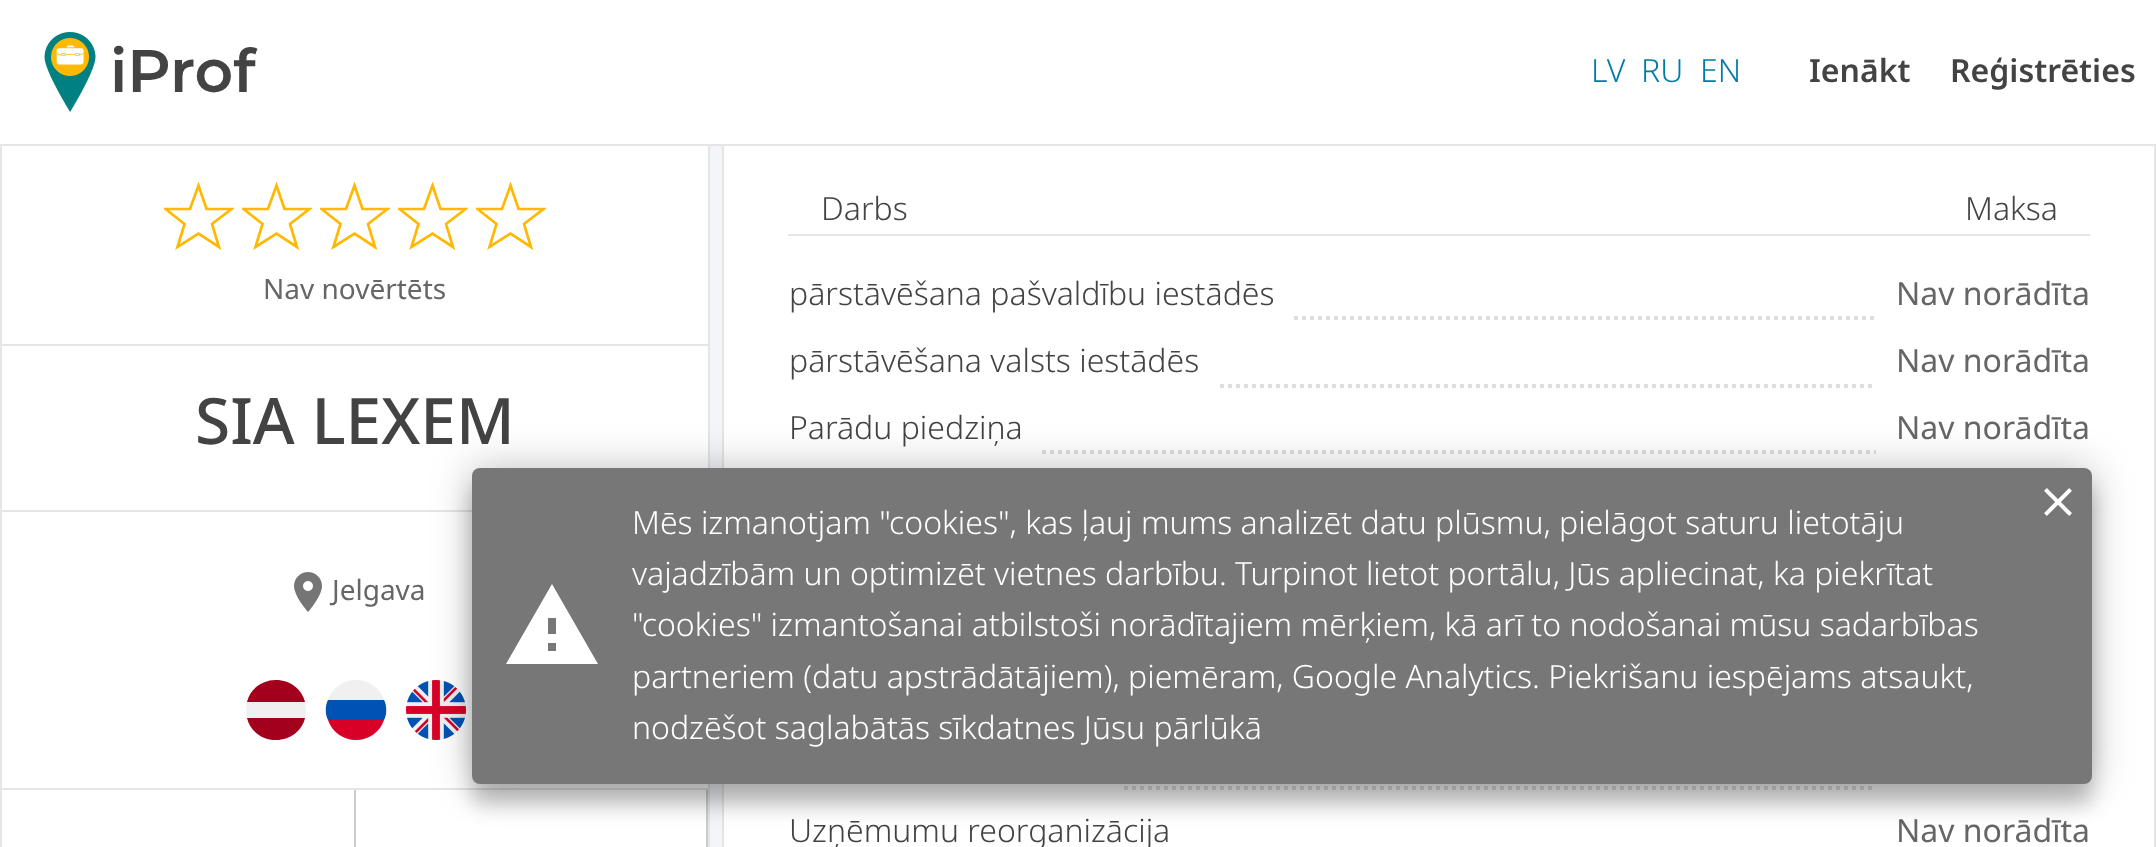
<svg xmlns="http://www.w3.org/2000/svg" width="2156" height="847">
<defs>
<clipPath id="clip1"><rect x="164" y="182" width="70" height="70"/></clipPath>
<clipPath id="clip2"><rect x="242" y="182" width="70" height="70"/></clipPath>
<clipPath id="clip3"><rect x="320" y="182" width="70" height="70"/></clipPath>
<clipPath id="clip4"><rect x="398" y="182" width="70" height="70"/></clipPath>
<clipPath id="clip5"><rect x="476" y="182" width="70" height="70"/></clipPath>
</defs>
<rect width="100%" height="100%" fill="#f3f5f9"/>
<rect x="2" y="146" width="706" height="701" fill="#fff"/>
<rect x="1" y="-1" width="708" height="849" fill="none" stroke="#e5e5e5" stroke-width="2"/>
<rect x="724" y="146" width="1430" height="701" fill="#fff"/>
<rect x="723" y="39" width="1432" height="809" fill="none" stroke="#e5e5e5" stroke-width="2"/>
<rect width="2156" height="144" fill="#fff"/>
<rect y="144" width="2156" height="2" fill="#e5e5e5"/>
<image x="44" y="32" width="52" height="80" href="media/1.png"/>
<text x="110" y="92" style="font-family:Montserrat;font-size:60px;font-weight:600;fill:#434343">iProf</text>
<text x="1591" y="82" style="font-family:Noto Sans;font-size:32px;font-weight:300;fill:#007ba7">LV</text>
<text x="1641" y="82" style="font-family:Noto Sans;font-size:32px;font-weight:300;fill:#007ba7">RU</text>
<text x="1700" y="82" style="font-family:Noto Sans;font-size:32px;font-weight:300;fill:#007ba7">EN</text>
<text x="1809" y="82" style="font-family:Noto Sans;font-size:32px;font-weight:600;fill:#434343">Ienākt</text>
<text x="1950" y="82" style="font-family:Noto Sans;font-size:32px;font-weight:600;fill:#434343">Reģistrēties</text>
<g clip-path="url(#clip1)">
<path d="M198.5 185.5l8 23.5h25l-19.5 15l7 23l-20.5-13.5l-21 13.5l7-23l-19-15h24.5z" fill="none" stroke="#ffb803" stroke-width="2.7"/>
</g>
<g clip-path="url(#clip2)">
<path d="M276.5 185.5l8 23.5h25l-19.5 15l7 23l-20.5-13.5l-21 13.5l7-23l-19-15h24.5z" fill="none" stroke="#ffb803" stroke-width="2.7"/>
</g>
<g clip-path="url(#clip3)">
<path d="M354.5 185.5l8 23.5h25l-19.5 15l7 23l-20.5-13.5l-21 13.5l7-23l-19-15h24.5z" fill="none" stroke="#ffb803" stroke-width="2.7"/>
</g>
<g clip-path="url(#clip4)">
<path d="M432.5 185.5l8 23.5h25l-19.5 15l7 23l-20.5-13.5l-21 13.5l7-23l-19-15h24.5z" fill="none" stroke="#ffb803" stroke-width="2.7"/>
</g>
<g clip-path="url(#clip5)">
<path d="M510.5 185.5l8 23.5h25l-19.5 15l7 23l-20.5-13.5l-21 13.5l7-23l-19-15h24.5z" fill="none" stroke="#ffb803" stroke-width="2.7"/>
</g>
<text x="263" y="299" style="font-family:Noto Sans;font-size:28px;fill:#666">Nav novērtēts</text>
<rect x="2" y="344" width="706" height="2" fill="#e5e5e5"/>
<text x="195" y="444" style="font-family:Noto Sans;font-size:64px;font-weight:500;fill:#434343">SIA LEXEM</text>
<rect x="2" y="510" width="470" height="2" fill="#e5e5e5"/>
<image x="294" y="572" width="28" height="40" href="media/2.png"/>
<text x="332" y="600" style="font-family:Noto Sans;font-size:28px;fill:#666">Jelgava</text>
<circle cx="276" cy="710" r="30" fill="#f0f0f0"/>
<path d="M276 680c-14 0-26 9-29 22h58c-3-13-15-22-29-22zm0 60c14 0 26-9 29-22h-58c3 13 15 22 29 22z" fill="#a2001d"/>
<circle cx="356" cy="710" r="30" fill="#f0f0f0"/>
<image x="406" y="680" width="60" height="60" href="media/3.png"/>
<path d="M384 720c3-6 3-14 0-20h-56c-3 6-3 14 0 20l28 3z" fill="#0052b4"/>
<path d="M356 740c13 0 24-8 28-20h-56c4 12 15 20 28 20z" fill="#d80027"/>
<rect x="2" y="788" width="706" height="2" fill="#e5e5e5"/>
<rect x="354" y="790" width="2" height="57" fill="#ccc"/>
<rect x="706" y="790" width="2" height="57" fill="#ccc"/>
<text x="821" y="220" style="font-family:Noto Sans;font-size:32px;font-weight:300;fill:#434343">Darbs</text>
<text x="1965" y="220" style="font-family:Noto Sans;font-size:32px;font-weight:300;fill:#434343">Maksa</text>
<rect x="788" y="234" width="1302" height="2" fill="#e5e5e5"/>
<text x="789" y="305" style="font-family:Noto Sans;font-size:32px;font-weight:300;fill:#434343">pārstāvēšana pašvaldību iestādēs</text>
<text x="1896" y="305" style="font-family:Noto Sans;font-size:32px;fill:#666">Nav norādīta</text>
<path d="M1294 318h582" fill="none" stroke="#dedede" stroke-width="4" stroke-dasharray="4 4"/>
<text x="789" y="372" style="font-family:Noto Sans;font-size:32px;font-weight:300;fill:#434343">pārstāvēšana valsts iestādēs</text>
<text x="1896" y="372" style="font-family:Noto Sans;font-size:32px;fill:#666">Nav norādīta</text>
<path d="M1220 386h656" fill="none" stroke="#dedede" stroke-width="4" stroke-dasharray="4 4"/>
<text x="789" y="439" style="font-family:Noto Sans;font-size:32px;font-weight:300;fill:#434343">Parādu piedziņa</text>
<text x="1896" y="439" style="font-family:Noto Sans;font-size:32px;fill:#666">Nav norādīta</text>
<path d="M1042 452h834" fill="none" stroke="#dedede" stroke-width="4" stroke-dasharray="4 4"/>
<path d="M1124 788h752" fill="none" stroke="#dedede" stroke-width="4" stroke-dasharray="4 4"/>
<text x="789" y="842" style="font-family:Noto Sans;font-size:32px;font-weight:300;fill:#434343">Uzņēmumu reorganizācija</text>
<text x="1896" y="842" style="font-family:Noto Sans;font-size:32px;fill:#666">Nav norādīta</text>
<rect x="472" y="488" width="1620" height="316" rx="8" fill="#00000038" filter="blur(10px)"/>
<rect x="472" y="468" width="1620" height="316" rx="8" fill="#00000040" filter="blur(20px)"/>
<rect x="472" y="468" width="1620" height="316" rx="8" fill="#777"/>
<image x="2044" y="488" width="28" height="28" href="media/4.png"/>
<path d="M556 634v-16h-8v16zm0 17v-8h-8v8zm-50 13l46-80l46 80z" fill="#fff"/>
<text x="632" y="534" style="font-family:Noto Sans;font-size:32px;font-weight:300;fill:#fff">Mēs izmanotjam "cookies", kas ļauj mums analizēt datu plūsmu, pielāgot saturu lietotāju</text>
<text x="632" y="585" style="font-family:Noto Sans;font-size:32px;font-weight:300;fill:#fff">vajadzībām un optimizēt vietnes darbību. Turpinot lietot portālu, Jūs apliecinat, ka piekrītat</text>
<text x="632" y="636" style="font-family:Noto Sans;font-size:32px;font-weight:300;fill:#fff">"cookies" izmantošanai atbilstoši norādītajiem mērķiem, kā arī to nodošanai mūsu sadarbības</text>
<text x="632" y="688" style="font-family:Noto Sans;font-size:32px;font-weight:300;fill:#fff">partneriem (datu apstrādātājiem), piemēram, Google Analytics. Piekrišanu iespējams atsaukt,</text>
<text x="632" y="739" style="font-family:Noto Sans;font-size:32px;font-weight:300;fill:#fff">nodzēšot saglabātās sīkdatnes Jūsu pārlūkā</text>
</svg>
